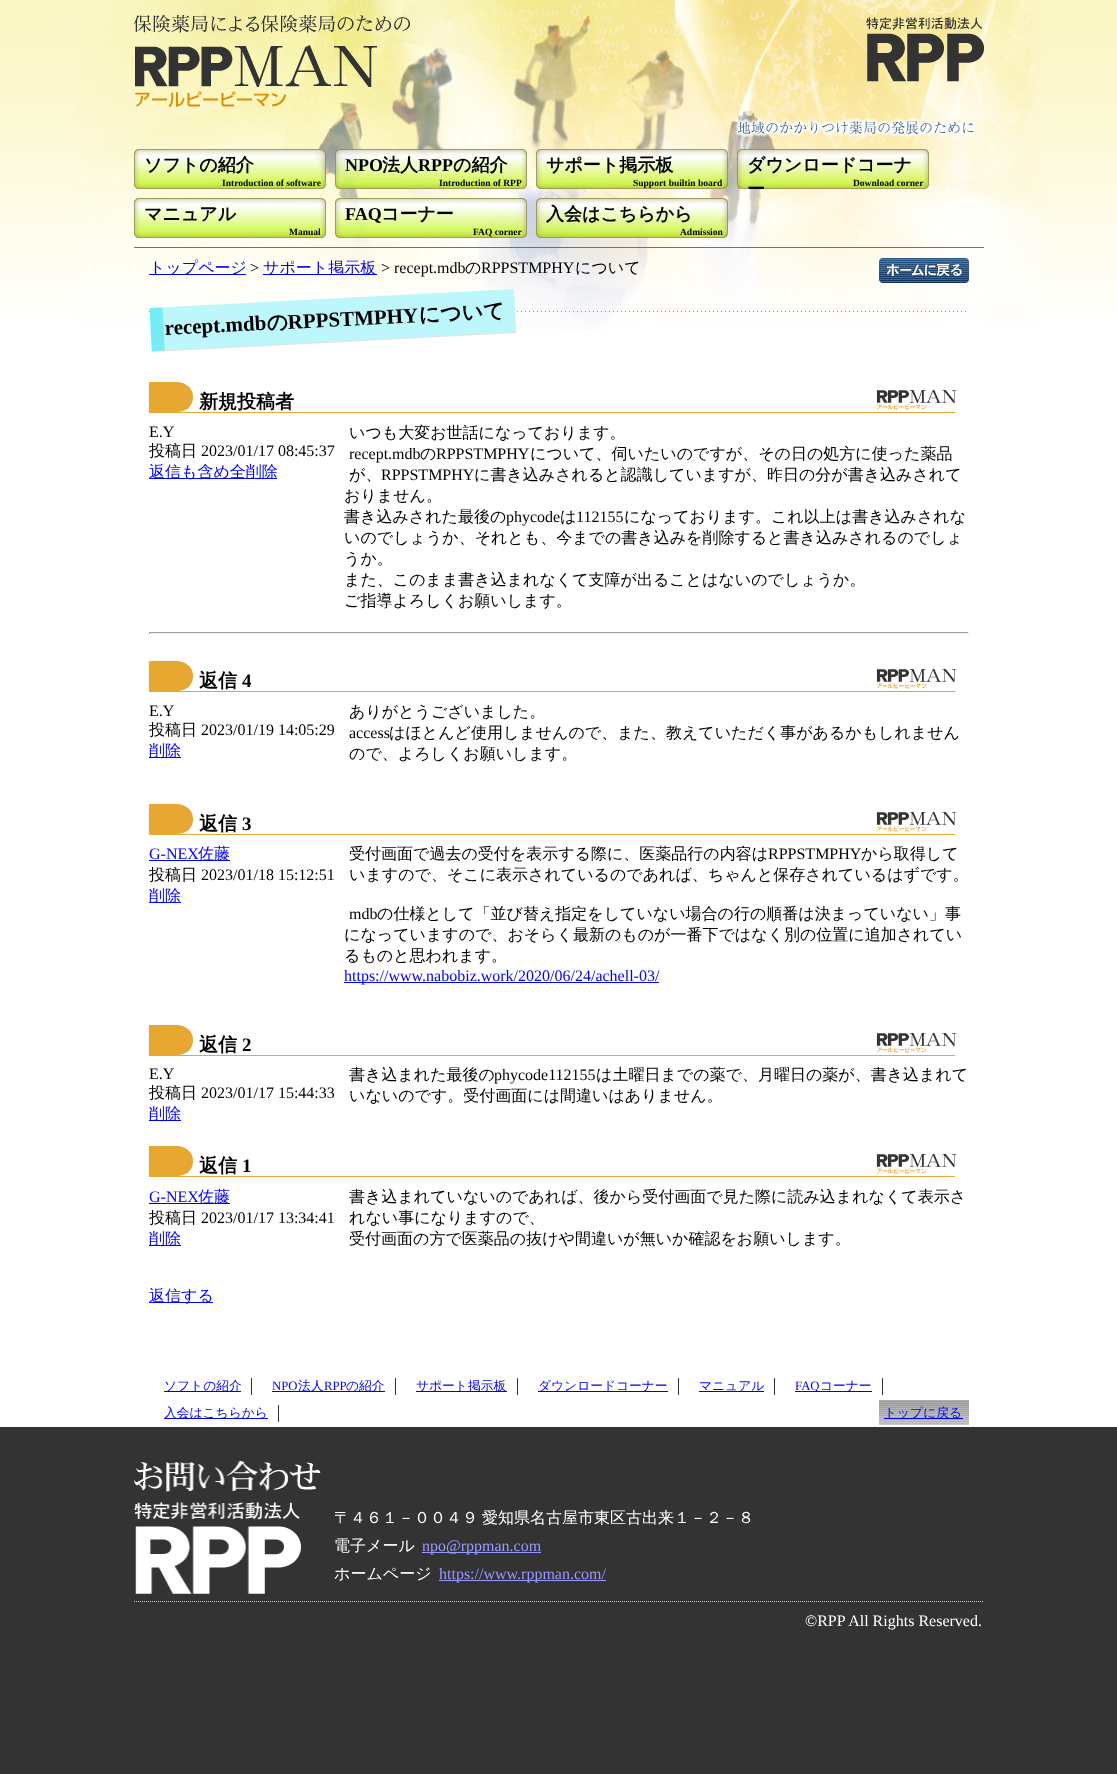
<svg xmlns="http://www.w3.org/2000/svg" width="1117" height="1774">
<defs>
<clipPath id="clip1"><rect x="737" y="149" width="192" height="40"/></clipPath>
<clipPath id="clip2"><rect x="149" y="363" width="820" height="960"/></clipPath>
<clipPath id="clip3"><rect x="149" y="642" width="820" height="143"/></clipPath>
<clipPath id="clip4"><rect x="149" y="785" width="820" height="220"/></clipPath>
<clipPath id="clip5"><rect x="149" y="1005" width="820" height="122"/></clipPath>
<clipPath id="clip6"><rect x="149" y="1127" width="820" height="143"/></clipPath>
</defs>
<rect width="100%" height="100%" fill="#333"/>
<rect y="314" width="1117" height="1113" fill="#fff"/>
<image x="0" y="0" width="1117" height="314" href="media/1.png"/>
<image x="77" y="0" width="964" height="330" href="media/2.png"/>
<image x="134" y="15" width="276" height="93" href="media/3.png"/>
<image x="866" y="17" width="118" height="65" href="media/4.png"/>
<image x="735" y="118" width="242" height="20" href="media/5.png"/>
<image x="134" y="149" width="192" height="40" href="media/6.png"/>
<text x="144" y="171" style="font-family:WenQuanYi Zen Hei;font-size:18px;font-weight:bold;fill:#000">ソフトの紹介</text>
<text x="222" y="186" style="font-family:Liberation Serif;font-size:9.5px;font-weight:bold;fill:#000">Introduction of software</text>
<image x="335" y="149" width="192" height="40" href="media/7.png"/>
<text x="345" y="171" style="font-family:Liberation Serif;font-size:18px;font-weight:bold;fill:#000">NPO</text>
<text x="382" y="171" style="font-family:WenQuanYi Zen Hei;font-size:18px;font-weight:bold;fill:#000">法人</text>
<text x="418" y="171" style="font-family:Liberation Serif;font-size:18px;font-weight:bold;fill:#000">RPP</text>
<text x="453" y="171" style="font-family:WenQuanYi Zen Hei;font-size:18px;font-weight:bold;fill:#000">の紹介</text>
<text x="439" y="186" style="font-family:Liberation Serif;font-size:9.5px;font-weight:bold;fill:#000">Introduction of RPP</text>
<image x="536" y="149" width="192" height="40" href="media/8.png"/>
<text x="546" y="171" style="font-family:WenQuanYi Zen Hei;font-size:18px;font-weight:bold;fill:#000">サポート掲示板</text>
<text x="633" y="186" style="font-family:Liberation Serif;font-size:9.5px;font-weight:bold;fill:#000">Support builtin board</text>
<image x="737" y="149" width="192" height="40" href="media/9.png"/>
<text x="747" y="171" style="font-family:WenQuanYi Zen Hei;font-size:18px;font-weight:bold;fill:#000">ダウンロードコーナ</text>
<g clip-path="url(#clip1)">
<text x="747" y="195" style="font-family:WenQuanYi Zen Hei;font-size:18px;font-weight:bold;fill:#000">ー</text>
</g>
<text x="853" y="186" style="font-family:Liberation Serif;font-size:9.5px;font-weight:bold;fill:#000">Download corner</text>
<image x="134" y="198" width="192" height="40" href="media/10.png"/>
<text x="144" y="220" style="font-family:WenQuanYi Zen Hei;font-size:18px;font-weight:bold;fill:#000">マニュアル</text>
<text x="289" y="235" style="font-family:Liberation Serif;font-size:9.5px;font-weight:bold;fill:#000">Manual</text>
<image x="335" y="198" width="192" height="40" href="media/11.png"/>
<text x="345" y="220" style="font-family:Liberation Serif;font-size:18px;font-weight:bold;fill:#000">FAQ</text>
<text x="381" y="220" style="font-family:WenQuanYi Zen Hei;font-size:18px;font-weight:bold;fill:#000">コーナー</text>
<text x="473" y="235" style="font-family:Liberation Serif;font-size:9.5px;font-weight:bold;fill:#000">FAQ corner</text>
<image x="536" y="198" width="192" height="40" href="media/12.png"/>
<text x="546" y="220" style="font-family:WenQuanYi Zen Hei;font-size:18px;font-weight:bold;fill:#000">入会はこちらから</text>
<text x="680" y="235" style="font-family:Liberation Serif;font-size:9.5px;font-weight:bold;fill:#000">Admission</text>
<rect x="134" y="247" width="850" height="1" fill="#09c"/>
<rect x="149" y="274" width="97" height="1" fill="#00e"/>
<text x="149" y="273" style="font-family:WenQuanYi Zen Hei;font-size:16px;font-weight:500;fill:#00e">トップページ</text>
<text x="250" y="273" style="font-family:Liberation Serif;font-size:16px;fill:#000">&gt;</text>
<rect x="263" y="274" width="114" height="1" fill="#00e"/>
<text x="263" y="273" style="font-family:WenQuanYi Zen Hei;font-size:16px;font-weight:500;fill:#00e">サポート掲示板</text>
<text x="381" y="273" style="font-family:Liberation Serif;font-size:16px;fill:#000">&gt; recept.mdb</text>
<text x="465" y="273" style="font-family:WenQuanYi Zen Hei;font-size:16px;font-weight:500;fill:#000">の</text>
<text x="481" y="273" style="font-family:Liberation Serif;font-size:16px;fill:#000">RPPSTMPHY</text>
<text x="575" y="273" style="font-family:WenQuanYi Zen Hei;font-size:16px;font-weight:500;fill:#000">について</text>
<image x="879" y="258" width="90" height="25" href="media/13.png"/>
<image x="149" y="311" width="817" height="1" href="media/14.png"/>
<image x="149" y="289" width="368" height="63" href="media/15.png"/>
<text x="165" y="335" transform="rotate(-3 165 335)" style="font-family:Liberation Serif;font-size:21px;font-weight:bold;fill:#000">recept.mdb</text>
<text x="267" y="330" transform="rotate(-3 267 330)" style="font-family:WenQuanYi Zen Hei;font-size:21px;font-weight:bold;fill:#000">の</text>
<text x="288" y="329" transform="rotate(-3 288 329)" style="font-family:Liberation Serif;font-size:21px;font-weight:bold;fill:#000">RPPSTMPHY</text>
<text x="419" y="322" transform="rotate(-3 419 322)" style="font-family:WenQuanYi Zen Hei;font-size:21px;font-weight:bold;fill:#000">について</text>
<image x="149" y="382" width="808" height="31" href="media/16.png"/>
<text x="199" y="408" style="font-family:WenQuanYi Zen Hei;font-size:19px;font-weight:bold;fill:#000">新規投稿者</text>
<text x="149" y="437" style="font-family:Liberation Serif;font-size:16px;fill:#000">E.Y</text>
<g clip-path="url(#clip2)">
<text x="149" y="456" style="font-family:WenQuanYi Zen Hei;font-size:16px;font-weight:500;fill:#000">投稿日</text>
</g>
<text x="201" y="456" style="font-family:Liberation Serif;font-size:16px;fill:#000">2023/01/17 08:45:37</text>
<rect x="149" y="478" width="128" height="1" fill="#00e"/>
<text x="149" y="477" style="font-family:WenQuanYi Zen Hei;font-size:16px;font-weight:500;fill:#00e">返信も含め全削除</text>
<text x="349" y="438" style="font-family:WenQuanYi Zen Hei;font-size:16px;font-weight:500;fill:#000">いつも大変お世話になっております。</text>
<text x="349" y="459" style="font-family:Liberation Serif;font-size:16px;fill:#000">recept.mdb</text>
<text x="420" y="459" style="font-family:WenQuanYi Zen Hei;font-size:16px;font-weight:500;fill:#000">の</text>
<text x="436" y="459" style="font-family:Liberation Serif;font-size:16px;fill:#000">RPPSTMPHY</text>
<text x="530" y="459" style="font-family:WenQuanYi Zen Hei;font-size:16px;font-weight:500;fill:#000">について、伺いたいのですが、その日の処方に使った薬品</text>
<text x="349" y="480" style="font-family:WenQuanYi Zen Hei;font-size:16px;font-weight:500;fill:#000">が、</text>
<text x="381" y="480" style="font-family:Liberation Serif;font-size:16px;fill:#000">RPPSTMPHY</text>
<text x="474" y="480" style="font-family:WenQuanYi Zen Hei;font-size:16px;font-weight:500;fill:#000">に書き込みされると認識していますが、昨日の分が書き込みされて</text>
<text x="344" y="501" style="font-family:WenQuanYi Zen Hei;font-size:16px;font-weight:500;fill:#000">おりません。</text>
<text x="344" y="522" style="font-family:WenQuanYi Zen Hei;font-size:16px;font-weight:500;fill:#000">書き込みされた最後の</text>
<text x="506" y="522" style="font-family:Liberation Serif;font-size:16px;fill:#000">phycode</text>
<text x="560" y="522" style="font-family:WenQuanYi Zen Hei;font-size:16px;font-weight:500;fill:#000">は</text>
<text x="576" y="522" style="font-family:Liberation Serif;font-size:16px;fill:#000">112155</text>
<text x="624" y="522" style="font-family:WenQuanYi Zen Hei;font-size:16px;font-weight:500;fill:#000">になっております。これ以上は書き込みされな</text>
<text x="344" y="543" style="font-family:WenQuanYi Zen Hei;font-size:16px;font-weight:500;fill:#000">いのでしょうか、それとも、今までの書き込みを削除すると書き込みされるのでしょ</text>
<text x="344" y="564" style="font-family:WenQuanYi Zen Hei;font-size:16px;font-weight:500;fill:#000">うか。</text>
<text x="344" y="585" style="font-family:WenQuanYi Zen Hei;font-size:16px;font-weight:500;fill:#000">また、このまま書き込まれなくて支障が出ることはないのでしょうか。</text>
<text x="344" y="606" style="font-family:WenQuanYi Zen Hei;font-size:16px;font-weight:500;fill:#000">ご指導よろしくお願いします。</text>
<rect x="149" y="632" width="820" height="1" fill="#9f9f9f"/>
<rect x="968" y="632" width="1" height="2" fill="#eee"/>
<rect x="149" y="633" width="820" height="1" fill="#eee"/>
<rect x="149" y="632" width="1" height="2" fill="#9f9f9f"/>
<image x="149" y="661" width="808" height="31" href="media/16.png"/>
<text x="199" y="687" style="font-family:WenQuanYi Zen Hei;font-size:19px;font-weight:bold;fill:#000">返信</text>
<text x="242" y="687" style="font-family:Liberation Serif;font-size:19px;font-weight:bold;fill:#000">4</text>
<text x="149" y="716" style="font-family:Liberation Serif;font-size:16px;fill:#000">E.Y</text>
<g clip-path="url(#clip3)">
<text x="149" y="735" style="font-family:WenQuanYi Zen Hei;font-size:16px;font-weight:500;fill:#000">投稿日</text>
</g>
<text x="201" y="735" style="font-family:Liberation Serif;font-size:16px;fill:#000">2023/01/19 14:05:29</text>
<rect x="149" y="757" width="32" height="1" fill="#00e"/>
<text x="149" y="756" style="font-family:WenQuanYi Zen Hei;font-size:16px;font-weight:500;fill:#00e">削除</text>
<text x="349" y="717" style="font-family:WenQuanYi Zen Hei;font-size:16px;font-weight:500;fill:#000">ありがとうございました。</text>
<text x="349" y="738" style="font-family:Liberation Serif;font-size:16px;fill:#000">access</text>
<text x="389" y="738" style="font-family:WenQuanYi Zen Hei;font-size:16px;font-weight:500;fill:#000">はほとんど使用しませんので、また、教えていただく事があるかもしれません</text>
<text x="349" y="759" style="font-family:WenQuanYi Zen Hei;font-size:16px;font-weight:500;fill:#000">ので、よろしくお願いします。</text>
<image x="149" y="804" width="808" height="31" href="media/16.png"/>
<text x="199" y="830" style="font-family:WenQuanYi Zen Hei;font-size:19px;font-weight:bold;fill:#000">返信</text>
<text x="242" y="830" style="font-family:Liberation Serif;font-size:19px;font-weight:bold;fill:#000">3</text>
<text x="149" y="859" style="font-family:Liberation Serif;font-size:16px;fill:#00e">G-NEX</text>
<rect x="149" y="860" width="81" height="1" fill="#00e"/>
<text x="198" y="859" style="font-family:WenQuanYi Zen Hei;font-size:16px;font-weight:500;fill:#00e">佐藤</text>
<g clip-path="url(#clip4)">
<text x="149" y="880" style="font-family:WenQuanYi Zen Hei;font-size:16px;font-weight:500;fill:#000">投稿日</text>
</g>
<text x="201" y="880" style="font-family:Liberation Serif;font-size:16px;fill:#000">2023/01/18 15:12:51</text>
<rect x="149" y="902" width="32" height="1" fill="#00e"/>
<text x="149" y="901" style="font-family:WenQuanYi Zen Hei;font-size:16px;font-weight:500;fill:#00e">削除</text>
<text x="349" y="859" style="font-family:WenQuanYi Zen Hei;font-size:16px;font-weight:500;fill:#000">受付画面で過去の受付を表示する際に、医薬品行の内容は</text>
<text x="768" y="859" style="font-family:Liberation Serif;font-size:16px;fill:#000">RPPSTMPHY</text>
<text x="861" y="859" style="font-family:WenQuanYi Zen Hei;font-size:16px;font-weight:500;fill:#000">から取得して</text>
<text x="349" y="880" style="font-family:WenQuanYi Zen Hei;font-size:16px;font-weight:500;fill:#000">いますので、そこに表示されているのであれば、ちゃんと保存されているはずです。</text>
<text x="349" y="919" style="font-family:Liberation Serif;font-size:16px;fill:#000">mdb</text>
<text x="377" y="919" style="font-family:WenQuanYi Zen Hei;font-size:16px;font-weight:500;fill:#000">の仕様として「並び替え指定をしていない場合の行の順番は決まっていない」事</text>
<text x="344" y="940" style="font-family:WenQuanYi Zen Hei;font-size:16px;font-weight:500;fill:#000">になっていますので、おそらく最新のものが一番下ではなく別の位置に追加されてい</text>
<text x="344" y="961" style="font-family:WenQuanYi Zen Hei;font-size:16px;font-weight:500;fill:#000">るものと思われます。</text>
<rect x="344" y="982" width="315" height="1" fill="#00e"/>
<text x="344" y="981" style="font-family:Liberation Serif;font-size:16px;fill:#00e">https://www.nabobiz.work/2020/06/24/achell-03/</text>
<image x="149" y="1025" width="808" height="31" href="media/16.png"/>
<text x="199" y="1051" style="font-family:WenQuanYi Zen Hei;font-size:19px;font-weight:bold;fill:#000">返信</text>
<text x="242" y="1051" style="font-family:Liberation Serif;font-size:19px;font-weight:bold;fill:#000">2</text>
<text x="149" y="1079" style="font-family:Liberation Serif;font-size:16px;fill:#000">E.Y</text>
<g clip-path="url(#clip5)">
<text x="149" y="1098" style="font-family:WenQuanYi Zen Hei;font-size:16px;font-weight:500;fill:#000">投稿日</text>
</g>
<text x="201" y="1098" style="font-family:Liberation Serif;font-size:16px;fill:#000">2023/01/17 15:44:33</text>
<rect x="149" y="1120" width="32" height="1" fill="#00e"/>
<text x="149" y="1119" style="font-family:WenQuanYi Zen Hei;font-size:16px;font-weight:500;fill:#00e">削除</text>
<text x="349" y="1080" style="font-family:WenQuanYi Zen Hei;font-size:16px;font-weight:500;fill:#000">書き込まれた最後の</text>
<text x="494" y="1080" style="font-family:Liberation Serif;font-size:16px;fill:#000">phycode112155</text>
<text x="596" y="1080" style="font-family:WenQuanYi Zen Hei;font-size:16px;font-weight:500;fill:#000">は土曜日までの薬で、月曜日の薬が、書き込まれて</text>
<text x="349" y="1101" style="font-family:WenQuanYi Zen Hei;font-size:16px;font-weight:500;fill:#000">いないのです。受付画面には間違いはありません。</text>
<image x="149" y="1146" width="808" height="31" href="media/16.png"/>
<text x="199" y="1172" style="font-family:WenQuanYi Zen Hei;font-size:19px;font-weight:bold;fill:#000">返信</text>
<text x="242" y="1172" style="font-family:Liberation Serif;font-size:19px;font-weight:bold;fill:#000">1</text>
<text x="149" y="1202" style="font-family:Liberation Serif;font-size:16px;fill:#00e">G-NEX</text>
<rect x="149" y="1203" width="81" height="1" fill="#00e"/>
<text x="198" y="1202" style="font-family:WenQuanYi Zen Hei;font-size:16px;font-weight:500;fill:#00e">佐藤</text>
<g clip-path="url(#clip6)">
<text x="149" y="1223" style="font-family:WenQuanYi Zen Hei;font-size:16px;font-weight:500;fill:#000">投稿日</text>
</g>
<text x="201" y="1223" style="font-family:Liberation Serif;font-size:16px;fill:#000">2023/01/17 13:34:41</text>
<rect x="149" y="1245" width="32" height="1" fill="#00e"/>
<text x="149" y="1244" style="font-family:WenQuanYi Zen Hei;font-size:16px;font-weight:500;fill:#00e">削除</text>
<text x="349" y="1202" style="font-family:WenQuanYi Zen Hei;font-size:16px;font-weight:500;fill:#000">書き込まれていないのであれば、後から受付画面で見た際に読み込まれなくて表示さ</text>
<text x="349" y="1223" style="font-family:WenQuanYi Zen Hei;font-size:16px;font-weight:500;fill:#000">れない事になりますので、</text>
<text x="349" y="1244" style="font-family:WenQuanYi Zen Hei;font-size:16px;font-weight:500;fill:#000">受付画面の方で医薬品の抜けや間違いが無いか確認をお願いします。</text>
<rect x="149" y="1302" width="64" height="1" fill="#00e"/>
<text x="149" y="1301" style="font-family:WenQuanYi Zen Hei;font-size:16px;font-weight:500;fill:#00e">返信する</text>
<rect x="251" y="1378" width="1" height="17" fill="#333"/>
<rect x="164" y="1391" width="77" height="1" fill="#00e"/>
<text x="164" y="1390" style="font-family:WenQuanYi Zen Hei;font-size:12.75px;font-weight:500;fill:#00e">ソフトの紹介</text>
<rect x="395" y="1378" width="1" height="17" fill="#333"/>
<text x="272" y="1390" style="font-family:Liberation Serif;font-size:12.75px;fill:#00e">NPO</text>
<rect x="272" y="1391" width="113" height="1" fill="#00e"/>
<text x="298" y="1390" style="font-family:WenQuanYi Zen Hei;font-size:12.75px;font-weight:500;fill:#00e">法人</text>
<text x="324" y="1390" style="font-family:Liberation Serif;font-size:12.75px;fill:#00e">RPP</text>
<text x="346" y="1390" style="font-family:WenQuanYi Zen Hei;font-size:12.75px;font-weight:500;fill:#00e">の紹介</text>
<rect x="517" y="1378" width="1" height="17" fill="#333"/>
<rect x="416" y="1391" width="91" height="1" fill="#00e"/>
<text x="416" y="1390" style="font-family:WenQuanYi Zen Hei;font-size:12.75px;font-weight:500;fill:#00e">サポート掲示板</text>
<rect x="678" y="1378" width="1" height="17" fill="#333"/>
<rect x="538" y="1391" width="130" height="1" fill="#00e"/>
<text x="538" y="1390" style="font-family:WenQuanYi Zen Hei;font-size:12.75px;font-weight:500;fill:#00e">ダウンロードコーナー</text>
<rect x="774" y="1378" width="1" height="17" fill="#333"/>
<rect x="699" y="1391" width="65" height="1" fill="#00e"/>
<text x="699" y="1390" style="font-family:WenQuanYi Zen Hei;font-size:12.75px;font-weight:500;fill:#00e">マニュアル</text>
<rect x="882" y="1378" width="1" height="17" fill="#333"/>
<rect x="795" y="1391" width="77" height="1" fill="#00e"/>
<text x="795" y="1390" style="font-family:Liberation Serif;font-size:12.75px;fill:#00e">FAQ</text>
<text x="820" y="1390" style="font-family:WenQuanYi Zen Hei;font-size:12.75px;font-weight:500;fill:#00e">コーナー</text>
<rect x="278" y="1405" width="1" height="17" fill="#333"/>
<rect x="164" y="1418" width="104" height="1" fill="#00e"/>
<text x="164" y="1417" style="font-family:WenQuanYi Zen Hei;font-size:12.75px;font-weight:500;fill:#00e">入会はこちらから</text>
<image x="879" y="1400" width="90" height="25" href="media/17.png"/>
<rect x="884" y="1418" width="79" height="1" fill="#00e"/>
<text x="884" y="1417" style="font-family:WenQuanYi Zen Hei;font-size:12.75px;font-weight:500;fill:#00e">トップに戻る</text>
<image x="134" y="1460" width="187" height="32" href="media/18.png"/>
<image x="134" y="1502" width="167" height="92" href="media/19.png"/>
<text x="334" y="1523" style="font-family:WenQuanYi Zen Hei;font-size:16px;font-weight:500;fill:#fff">〒４６１－００４９</text>
<text x="482" y="1523" style="font-family:WenQuanYi Zen Hei;font-size:16px;font-weight:500;fill:#fff">愛知県名古屋市東区古出来１－２－８</text>
<text x="334" y="1551" style="font-family:WenQuanYi Zen Hei;font-size:16px;font-weight:500;fill:#fff">電子メール</text>
<rect x="422" y="1552" width="119" height="1" fill="#99f"/>
<text x="422" y="1551" style="font-family:Liberation Serif;font-size:16px;fill:#99f">npo@rppman.com</text>
<text x="334" y="1579" style="font-family:WenQuanYi Zen Hei;font-size:16px;font-weight:500;fill:#fff">ホームページ</text>
<rect x="439" y="1580" width="167" height="1" fill="#99f"/>
<text x="439" y="1579" style="font-family:Liberation Serif;font-size:16px;fill:#99f">https://www.rppman.com/</text>
<path d="M134 1601.5h850" fill="none" stroke="#ccc" stroke-dasharray="1 1"/>
<text x="805" y="1626" style="font-family:Liberation Serif;font-size:16px;fill:#fff">©RPP All Rights Reserved.</text>
</svg>
